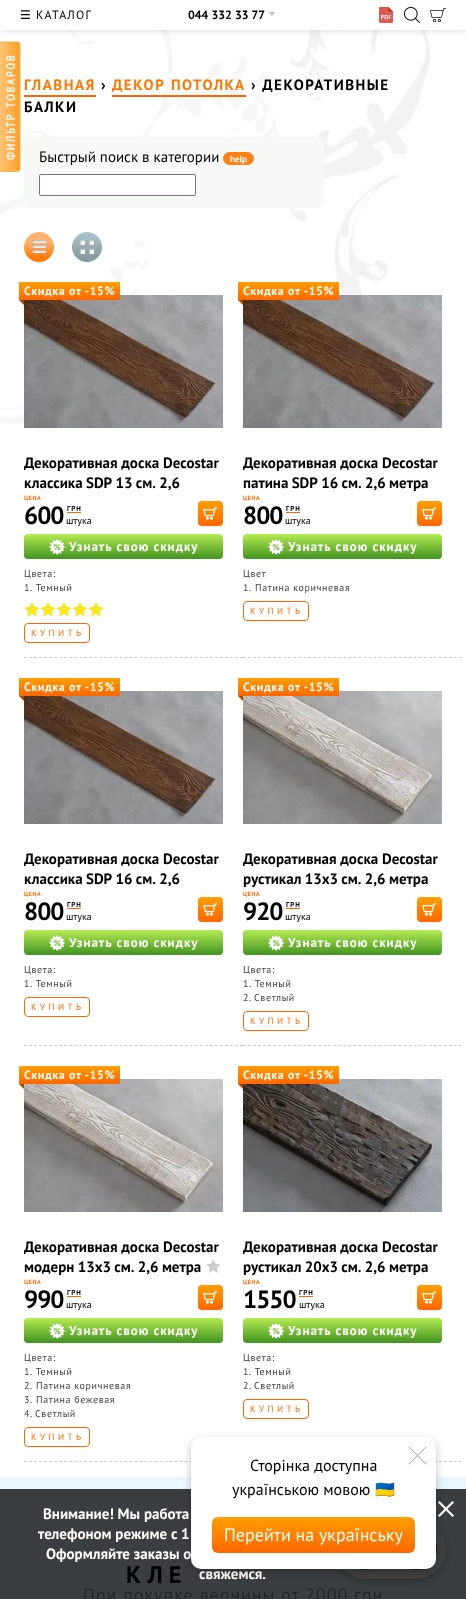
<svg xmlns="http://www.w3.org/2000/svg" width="466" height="1599">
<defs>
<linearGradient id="g1" gradientUnits="userSpaceOnUse" x1="-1.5" y1="107" x2="20" y2="107"><stop offset="0.05" stop-color="#ffc477"/><stop offset="1" stop-color="#fb9e25"/></linearGradient>
<linearGradient id="g2" gradientUnits="userSpaceOnUse" x1="70" y1="282" x2="70" y2="300"><stop offset="0" stop-color="#ff9f00"/><stop offset="1" stop-color="#f60"/></linearGradient>
<linearGradient id="g3" gradientUnits="userSpaceOnUse" x1="211" y1="501" x2="211" y2="526"><stop offset="0" stop-color="#ff9f00"/><stop offset="1" stop-color="#f60"/></linearGradient>
<linearGradient id="g4" gradientUnits="userSpaceOnUse" x1="124" y1="534" x2="124" y2="559"><stop offset="0" stop-color="#b4ec51"/><stop offset="1" stop-color="#429321"/></linearGradient>
<linearGradient id="g5" gradientUnits="userSpaceOnUse" x1="289" y1="282" x2="289" y2="300"><stop offset="0" stop-color="#ff9f00"/><stop offset="1" stop-color="#f60"/></linearGradient>
<linearGradient id="g6" gradientUnits="userSpaceOnUse" x1="430" y1="501" x2="430" y2="526"><stop offset="0" stop-color="#ff9f00"/><stop offset="1" stop-color="#f60"/></linearGradient>
<linearGradient id="g7" gradientUnits="userSpaceOnUse" x1="343" y1="534" x2="343" y2="559"><stop offset="0" stop-color="#b4ec51"/><stop offset="1" stop-color="#429321"/></linearGradient>
<linearGradient id="g8" gradientUnits="userSpaceOnUse" x1="70" y1="678" x2="70" y2="696"><stop offset="0" stop-color="#ff9f00"/><stop offset="1" stop-color="#f60"/></linearGradient>
<linearGradient id="g9" gradientUnits="userSpaceOnUse" x1="211" y1="897" x2="211" y2="922"><stop offset="0" stop-color="#ff9f00"/><stop offset="1" stop-color="#f60"/></linearGradient>
<linearGradient id="g10" gradientUnits="userSpaceOnUse" x1="124" y1="930" x2="124" y2="955"><stop offset="0" stop-color="#b4ec51"/><stop offset="1" stop-color="#429321"/></linearGradient>
<linearGradient id="g11" gradientUnits="userSpaceOnUse" x1="289" y1="678" x2="289" y2="696"><stop offset="0" stop-color="#ff9f00"/><stop offset="1" stop-color="#f60"/></linearGradient>
<linearGradient id="g12" gradientUnits="userSpaceOnUse" x1="430" y1="897" x2="430" y2="922"><stop offset="0" stop-color="#ff9f00"/><stop offset="1" stop-color="#f60"/></linearGradient>
<linearGradient id="g13" gradientUnits="userSpaceOnUse" x1="343" y1="930" x2="343" y2="955"><stop offset="0" stop-color="#b4ec51"/><stop offset="1" stop-color="#429321"/></linearGradient>
<linearGradient id="g14" gradientUnits="userSpaceOnUse" x1="70" y1="1066" x2="70" y2="1084"><stop offset="0" stop-color="#ff9f00"/><stop offset="1" stop-color="#f60"/></linearGradient>
<linearGradient id="g15" gradientUnits="userSpaceOnUse" x1="211" y1="1285" x2="211" y2="1310"><stop offset="0" stop-color="#ff9f00"/><stop offset="1" stop-color="#f60"/></linearGradient>
<linearGradient id="g16" gradientUnits="userSpaceOnUse" x1="124" y1="1318" x2="124" y2="1343"><stop offset="0" stop-color="#b4ec51"/><stop offset="1" stop-color="#429321"/></linearGradient>
<linearGradient id="g17" gradientUnits="userSpaceOnUse" x1="289" y1="1066" x2="289" y2="1084"><stop offset="0" stop-color="#ff9f00"/><stop offset="1" stop-color="#f60"/></linearGradient>
<linearGradient id="g18" gradientUnits="userSpaceOnUse" x1="430" y1="1285" x2="430" y2="1310"><stop offset="0" stop-color="#ff9f00"/><stop offset="1" stop-color="#f60"/></linearGradient>
<linearGradient id="g19" gradientUnits="userSpaceOnUse" x1="343" y1="1318" x2="343" y2="1343"><stop offset="0" stop-color="#b4ec51"/><stop offset="1" stop-color="#429321"/></linearGradient>
<linearGradient id="g20" gradientUnits="userSpaceOnUse" x1="314" y1="1517" x2="314" y2="1553"><stop offset="0" stop-color="#ff9f00"/><stop offset="1" stop-color="#f60"/></linearGradient>
</defs>
<rect width="100%" height="100%" fill="#fff"/>
<image x="0" y="30" width="291" height="394" href="media/5.png"/>
<path d="M-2 172v-130h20c1 0 2 1 2 2v124c0 2-1 4-2 4z" fill="#ffc477"/>
<path d="M-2 42h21l1 1v127c-2 3-18 2-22 2z" fill="url(#g1)"/>
<path d="M0 170h19c-2 1-17 0-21 0v-128h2z" fill="#fce2c1"/>
<path d="M-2 171v-129h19.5c1.5 0 2.5 1 2.5 2.5v124c0 1.5-1 2.5-2.5 2.5z" fill="none" stroke="#eeb44f"/>
<text x="15" y="160" transform="rotate(-90 15 160)" word-spacing="1" style="font-family:PT Sans Narrow;font-size:12px;font-weight:bold;letter-spacing:2px;fill:#fff">ФИЛЬТР ТОВАРОВ</text>
<image x="291" y="30" width="145" height="265" href="media/4.png"/>
<rect y="1" width="466" height="30" fill="#00000021" filter="blur(3px)"/>
<rect width="466" height="30" fill="#fff"/>
<text x="20" y="19" style="font-family:DejaVu Sans;font-size:12px;letter-spacing:1.25px;fill:#000">☰</text>
<text x="36" y="19" style="font-family:PT Sans;font-size:12px;letter-spacing:1.25px;fill:#000">КАТАЛОГ</text>
<text x="188" y="19" style="font-family:PT Sans;font-size:12px;font-weight:bold;fill:#000">044 332 33 77</text>
<path d="M269 12h6l-3 4z" fill="#bfbfbf"/>
<image x="379" y="7" width="14" height="16" href="media/1.png"/>
<image x="404" y="7" width="16" height="16" href="media/2.png"/>
<image x="430" y="8" width="16" height="14" href="media/3.png"/>
<rect x="24" y="95" width="72" height="2" fill="#f60"/>
<text x="24" y="90" style="font-family:PT Sans;font-size:15px;font-weight:bold;letter-spacing:1.5px;fill:#f70">ГЛАВНАЯ</text>
<text x="101" y="90" style="font-family:PT Sans;font-size:15px;font-weight:bold;letter-spacing:1.5px;fill:#000">›</text>
<rect x="112" y="95" width="134" height="2" fill="#f60"/>
<text x="112" y="90" word-spacing="1" style="font-family:PT Sans;font-size:15px;font-weight:bold;letter-spacing:1.5px;fill:#f70">ДЕКОР ПОТОЛКА</text>
<text x="251" y="90" style="font-family:PT Sans;font-size:15px;font-weight:bold;letter-spacing:1.5px;fill:#000">› ДЕКОРАТИВНЫЕ</text>
<text x="24" y="112" style="font-family:PT Sans;font-size:15px;font-weight:bold;letter-spacing:1.5px;fill:#000">БАЛКИ</text>
<rect x="24" y="137" width="300" height="71" rx="8" fill="#f7f9f6"/>
<text x="39" y="162" style="font-family:PT Sans;font-size:15px;fill:#000">Быстрый поиск в категории</text>
<rect x="223.5" y="152.5" width="30" height="12" rx="6" fill="#fc8217" stroke="#fc8217"/>
<text x="230" y="162" style="font-family:PT Sans;font-size:9px;font-weight:bold;fill:#fff">help</text>
<rect x="39.5" y="174.5" width="156" height="21" rx="1.5" fill="#fff" stroke="#767676"/>
<image x="24" y="232" width="30" height="30" href="media/6.png"/>
<image x="72" y="232" width="30" height="30" href="media/7.png"/>
<image x="24" y="295" width="199" height="133" href="media/8.png"/>
<rect x="19" y="282" width="101" height="18" fill="url(#g2)"/>
<text x="24" y="295" style="font-family:PT Sans;font-size:12px;font-weight:bold;letter-spacing:0.6px;fill:#fff">Скидка от -15%</text>
<path d="M24 300v5l-5-5z" fill="#b04600"/>
<text x="24" y="468" style="font-family:PT Sans;font-size:15px;font-weight:bold;fill:#000">Декоративная доска Decostar</text>
<text x="24" y="488" word-spacing="-0.5" style="font-family:PT Sans;font-size:15px;font-weight:bold;fill:#000">классика SDP 13 см. 2,6</text>
<text x="24" y="500" style="font-family:PT Sans;font-size:6px;font-weight:bold;letter-spacing:0.6px;fill:#f60">ЦЕНА</text>
<text x="24" y="524" style="font-family:PT Sans;font-size:25px;font-weight:bold;letter-spacing:-1px;fill:#000">600</text>
<text x="67" y="511" style="font-family:PT Sans;font-size:7px;font-weight:bold;letter-spacing:1px;fill:#000">ГРН</text>
<rect x="67" y="512" width="14" height="1" fill="#f60"/>
<text x="66" y="524" style="font-family:PT Sans;font-size:10px;fill:#000">штука</text>
<rect x="198" y="501" width="25" height="25" rx="4" fill="url(#g3)"/>
<image x="203" y="507" width="15" height="13" href="media/9.png"/>
<rect x="24" y="534" width="199" height="25" rx="4" fill="url(#g4)"/>
<image x="49" y="539" width="16" height="16" href="media/10.png"/>
<text x="69" y="551" style="font-family:PT Sans;font-size:13px;font-weight:bold;letter-spacing:1px;fill:#fff">Узнать свою скидку</text>
<text x="24" y="577" style="font-family:PT Sans;font-size:10px;letter-spacing:0.6px;fill:#424242">Цвета:</text>
<text x="24" y="591" style="font-family:PT Sans;font-size:10px;letter-spacing:0.6px;fill:#424242">1. Темный</text>
<rect x="24" y="602" width="80" height="15" fill="#f8e71c"/>
<image x="24" y="601" width="80" height="16" href="media/11.png"/>
<rect x="24.5" y="623.5" width="65" height="19" rx="3.5" fill="none" stroke="#f60"/>
<text x="31" y="636" style="font-family:PT Sans;font-size:9px;letter-spacing:3.5px;fill:#f60">КУПИТЬ</text>
<path d="M24 657.5h219" fill="none" stroke="#ccc" stroke-dasharray="3 2.02"/>
<image x="243" y="295" width="199" height="133" href="media/8.png"/>
<rect x="238" y="282" width="101" height="18" fill="url(#g5)"/>
<text x="243" y="295" style="font-family:PT Sans;font-size:12px;font-weight:bold;letter-spacing:0.6px;fill:#fff">Скидка от -15%</text>
<path d="M243 300v5l-5-5z" fill="#b04600"/>
<text x="243" y="468" style="font-family:PT Sans;font-size:15px;font-weight:bold;fill:#000">Декоративная доска Decostar</text>
<text x="243" y="488" word-spacing="-0.5" style="font-family:PT Sans;font-size:15px;font-weight:bold;fill:#000">патина SDP 16 см. 2,6 метра</text>
<text x="243" y="500" style="font-family:PT Sans;font-size:6px;font-weight:bold;letter-spacing:0.6px;fill:#f60">ЦЕНА</text>
<text x="243" y="524" style="font-family:PT Sans;font-size:25px;font-weight:bold;letter-spacing:-1px;fill:#000">800</text>
<text x="286" y="511" style="font-family:PT Sans;font-size:7px;font-weight:bold;letter-spacing:1px;fill:#000">ГРН</text>
<rect x="286" y="512" width="14" height="1" fill="#f60"/>
<text x="285" y="524" style="font-family:PT Sans;font-size:10px;fill:#000">штука</text>
<rect x="417" y="501" width="25" height="25" rx="4" fill="url(#g6)"/>
<image x="422" y="507" width="15" height="13" href="media/9.png"/>
<rect x="243" y="534" width="199" height="25" rx="4" fill="url(#g7)"/>
<image x="268" y="539" width="16" height="16" href="media/10.png"/>
<text x="288" y="551" style="font-family:PT Sans;font-size:13px;font-weight:bold;letter-spacing:1px;fill:#fff">Узнать свою скидку</text>
<text x="243" y="577" style="font-family:PT Sans;font-size:10px;letter-spacing:0.6px;fill:#424242">Цвет</text>
<text x="243" y="591" style="font-family:PT Sans;font-size:10px;letter-spacing:0.6px;fill:#424242">1. Патина коричневая</text>
<rect x="243.5" y="601.5" width="65" height="19" rx="3.5" fill="none" stroke="#f60"/>
<text x="250" y="614" style="font-family:PT Sans;font-size:9px;letter-spacing:3.5px;fill:#f60">КУПИТЬ</text>
<path d="M243 657.5h219" fill="none" stroke="#ccc" stroke-dasharray="3 2.02"/>
<image x="24" y="691" width="199" height="133" href="media/8.png"/>
<rect x="19" y="678" width="101" height="18" fill="url(#g8)"/>
<text x="24" y="691" style="font-family:PT Sans;font-size:12px;font-weight:bold;letter-spacing:0.6px;fill:#fff">Скидка от -15%</text>
<path d="M24 696v5l-5-5z" fill="#b04600"/>
<text x="24" y="864" style="font-family:PT Sans;font-size:15px;font-weight:bold;fill:#000">Декоративная доска Decostar</text>
<text x="24" y="884" word-spacing="-0.5" style="font-family:PT Sans;font-size:15px;font-weight:bold;fill:#000">классика SDP 16 см. 2,6</text>
<text x="24" y="896" style="font-family:PT Sans;font-size:6px;font-weight:bold;letter-spacing:0.6px;fill:#f60">ЦЕНА</text>
<text x="24" y="920" style="font-family:PT Sans;font-size:25px;font-weight:bold;letter-spacing:-1px;fill:#000">800</text>
<text x="67" y="907" style="font-family:PT Sans;font-size:7px;font-weight:bold;letter-spacing:1px;fill:#000">ГРН</text>
<rect x="67" y="908" width="14" height="1" fill="#f60"/>
<text x="66" y="920" style="font-family:PT Sans;font-size:10px;fill:#000">штука</text>
<rect x="198" y="897" width="25" height="25" rx="4" fill="url(#g9)"/>
<image x="203" y="903" width="15" height="13" href="media/9.png"/>
<rect x="24" y="930" width="199" height="25" rx="4" fill="url(#g10)"/>
<image x="49" y="935" width="16" height="16" href="media/10.png"/>
<text x="69" y="947" style="font-family:PT Sans;font-size:13px;font-weight:bold;letter-spacing:1px;fill:#fff">Узнать свою скидку</text>
<text x="24" y="973" style="font-family:PT Sans;font-size:10px;letter-spacing:0.6px;fill:#424242">Цвета:</text>
<text x="24" y="987" style="font-family:PT Sans;font-size:10px;letter-spacing:0.6px;fill:#424242">1. Темный</text>
<rect x="24.5" y="997.5" width="65" height="19" rx="3.5" fill="none" stroke="#f60"/>
<text x="31" y="1010" style="font-family:PT Sans;font-size:9px;letter-spacing:3.5px;fill:#f60">КУПИТЬ</text>
<path d="M24 1045.5h219" fill="none" stroke="#ccc" stroke-dasharray="3 2.02"/>
<image x="243" y="691" width="199" height="133" href="media/12.png"/>
<rect x="238" y="678" width="101" height="18" fill="url(#g11)"/>
<text x="243" y="691" style="font-family:PT Sans;font-size:12px;font-weight:bold;letter-spacing:0.6px;fill:#fff">Скидка от -15%</text>
<path d="M243 696v5l-5-5z" fill="#b04600"/>
<text x="243" y="864" style="font-family:PT Sans;font-size:15px;font-weight:bold;fill:#000">Декоративная доска Decostar</text>
<text x="243" y="884" word-spacing="-0.5" style="font-family:PT Sans;font-size:15px;font-weight:bold;fill:#000">рустикал 13х3 см. 2,6 метра</text>
<text x="243" y="896" style="font-family:PT Sans;font-size:6px;font-weight:bold;letter-spacing:0.6px;fill:#f60">ЦЕНА</text>
<text x="243" y="920" style="font-family:PT Sans;font-size:25px;font-weight:bold;letter-spacing:-1px;fill:#000">920</text>
<text x="286" y="907" style="font-family:PT Sans;font-size:7px;font-weight:bold;letter-spacing:1px;fill:#000">ГРН</text>
<rect x="286" y="908" width="14" height="1" fill="#f60"/>
<text x="285" y="920" style="font-family:PT Sans;font-size:10px;fill:#000">штука</text>
<rect x="417" y="897" width="25" height="25" rx="4" fill="url(#g12)"/>
<image x="422" y="903" width="15" height="13" href="media/9.png"/>
<rect x="243" y="930" width="199" height="25" rx="4" fill="url(#g13)"/>
<image x="268" y="935" width="16" height="16" href="media/10.png"/>
<text x="288" y="947" style="font-family:PT Sans;font-size:13px;font-weight:bold;letter-spacing:1px;fill:#fff">Узнать свою скидку</text>
<text x="243" y="973" style="font-family:PT Sans;font-size:10px;letter-spacing:0.6px;fill:#424242">Цвета:</text>
<text x="243" y="987" style="font-family:PT Sans;font-size:10px;letter-spacing:0.6px;fill:#424242">1. Темный</text>
<text x="243" y="1001" word-spacing="-1" style="font-family:PT Sans;font-size:10px;letter-spacing:0.6px;fill:#424242">2. Светлый</text>
<rect x="243.5" y="1011.5" width="65" height="19" rx="3.5" fill="none" stroke="#f60"/>
<text x="250" y="1024" style="font-family:PT Sans;font-size:9px;letter-spacing:3.5px;fill:#f60">КУПИТЬ</text>
<path d="M243 1045.5h219" fill="none" stroke="#ccc" stroke-dasharray="3 2.02"/>
<image x="24" y="1079" width="199" height="133" href="media/13.png"/>
<rect x="19" y="1066" width="101" height="18" fill="url(#g14)"/>
<text x="24" y="1079" style="font-family:PT Sans;font-size:12px;font-weight:bold;letter-spacing:0.6px;fill:#fff">Скидка от -15%</text>
<path d="M24 1084v5l-5-5z" fill="#b04600"/>
<text x="24" y="1252" style="font-family:PT Sans;font-size:15px;font-weight:bold;fill:#000">Декоративная доска Decostar</text>
<text x="24" y="1272" word-spacing="-0.5" style="font-family:PT Sans;font-size:15px;font-weight:bold;fill:#000">модерн 13х3 см. 2,6 метра</text>
<image x="206" y="1259" width="15" height="14" href="media/14.png"/>
<text x="24" y="1284" style="font-family:PT Sans;font-size:6px;font-weight:bold;letter-spacing:0.6px;fill:#f60">ЦЕНА</text>
<text x="24" y="1308" style="font-family:PT Sans;font-size:25px;font-weight:bold;letter-spacing:-1px;fill:#000">990</text>
<text x="67" y="1295" style="font-family:PT Sans;font-size:7px;font-weight:bold;letter-spacing:1px;fill:#000">ГРН</text>
<rect x="67" y="1296" width="14" height="1" fill="#f60"/>
<text x="66" y="1308" style="font-family:PT Sans;font-size:10px;fill:#000">штука</text>
<rect x="198" y="1285" width="25" height="25" rx="4" fill="url(#g15)"/>
<image x="203" y="1291" width="15" height="13" href="media/9.png"/>
<rect x="24" y="1318" width="199" height="25" rx="4" fill="url(#g16)"/>
<image x="49" y="1323" width="16" height="16" href="media/10.png"/>
<text x="69" y="1335" style="font-family:PT Sans;font-size:13px;font-weight:bold;letter-spacing:1px;fill:#fff">Узнать свою скидку</text>
<text x="24" y="1361" style="font-family:PT Sans;font-size:10px;letter-spacing:0.6px;fill:#424242">Цвета:</text>
<text x="24" y="1375" style="font-family:PT Sans;font-size:10px;letter-spacing:0.6px;fill:#424242">1. Темный</text>
<text x="24" y="1389" style="font-family:PT Sans;font-size:10px;letter-spacing:0.6px;fill:#424242">2. Патина коричневая</text>
<text x="24" y="1403" style="font-family:PT Sans;font-size:10px;letter-spacing:0.6px;fill:#424242">3. Патина бежевая</text>
<text x="24" y="1417" word-spacing="-1" style="font-family:PT Sans;font-size:10px;letter-spacing:0.6px;fill:#424242">4. Светлый</text>
<rect x="24.5" y="1427.5" width="65" height="19" rx="3.5" fill="none" stroke="#f60"/>
<text x="31" y="1440" style="font-family:PT Sans;font-size:9px;letter-spacing:3.5px;fill:#f60">КУПИТЬ</text>
<path d="M24 1461.5h219" fill="none" stroke="#ccc" stroke-dasharray="3 2.02"/>
<image x="243" y="1079" width="199" height="133" href="media/15.png"/>
<rect x="238" y="1066" width="101" height="18" fill="url(#g17)"/>
<text x="243" y="1079" style="font-family:PT Sans;font-size:12px;font-weight:bold;letter-spacing:0.6px;fill:#fff">Скидка от -15%</text>
<path d="M243 1084v5l-5-5z" fill="#b04600"/>
<text x="243" y="1252" style="font-family:PT Sans;font-size:15px;font-weight:bold;fill:#000">Декоративная доска Decostar</text>
<text x="243" y="1272" word-spacing="-0.5" style="font-family:PT Sans;font-size:15px;font-weight:bold;fill:#000">рустикал 20х3 см. 2,6 метра</text>
<text x="243" y="1284" style="font-family:PT Sans;font-size:6px;font-weight:bold;letter-spacing:0.6px;fill:#f60">ЦЕНА</text>
<text x="243" y="1308" style="font-family:PT Sans;font-size:25px;font-weight:bold;letter-spacing:-1px;fill:#000">1550</text>
<text x="299" y="1295" style="font-family:PT Sans;font-size:7px;font-weight:bold;letter-spacing:1px;fill:#000">ГРН</text>
<rect x="299" y="1296" width="14" height="1" fill="#f60"/>
<text x="299" y="1308" style="font-family:PT Sans;font-size:10px;fill:#000">штука</text>
<rect x="417" y="1285" width="25" height="25" rx="4" fill="url(#g18)"/>
<image x="422" y="1291" width="15" height="13" href="media/9.png"/>
<rect x="243" y="1318" width="199" height="25" rx="4" fill="url(#g19)"/>
<image x="268" y="1323" width="16" height="16" href="media/10.png"/>
<text x="288" y="1335" style="font-family:PT Sans;font-size:13px;font-weight:bold;letter-spacing:1px;fill:#fff">Узнать свою скидку</text>
<text x="243" y="1361" style="font-family:PT Sans;font-size:10px;letter-spacing:0.6px;fill:#424242">Цвета:</text>
<text x="243" y="1375" style="font-family:PT Sans;font-size:10px;letter-spacing:0.6px;fill:#424242">1. Темный</text>
<text x="243" y="1389" word-spacing="-1" style="font-family:PT Sans;font-size:10px;letter-spacing:0.6px;fill:#424242">2. Светлый</text>
<rect x="243.5" y="1399.5" width="65" height="19" rx="3.5" fill="none" stroke="#f60"/>
<text x="250" y="1412" style="font-family:PT Sans;font-size:9px;letter-spacing:3.5px;fill:#f60">КУПИТЬ</text>
<path d="M243 1461.5h219" fill="none" stroke="#ccc" stroke-dasharray="3 2.02"/>
<rect y="1477" width="466" height="12" fill="#ebf7ff"/>
<rect y="1489" width="466" height="110" fill="#3b3e40"/>
<text x="126" y="1583" word-spacing="-1" style="font-family:PT Sans;font-size:24px;font-weight:bold;letter-spacing:6px;fill:#000">КЛЕ</text>
<text x="83" y="1601" style="font-family:PT Sans;font-size:18px;letter-spacing:1px;fill:#1d272e">При покупке лепнины от 2000 грн</text>
<text x="43" y="1519" style="font-family:PT Sans;font-size:15px;font-weight:bold;fill:#fff">Внимание! Мы работа</text>
<rect x="335" y="1522" width="111" height="60" rx="30" fill="#0000003d" filter="blur(3px)"/>
<path d="M452.5 1501l1.5 1.5l-14.5 14.5l-1.5-1.5z" fill="#fff"/>
<path d="M439.5 1501l14.5 14.5l-1.5 1.5l-14.5-14.5z" fill="#fff"/>
<text x="38" y="1539" style="font-family:PT Sans;font-size:15px;font-weight:bold;fill:#fff">телефоном режиме с 1</text>
<text x="46" y="1559" style="font-family:PT Sans;font-size:15px;font-weight:bold;fill:#fff">Оформляйте заказы о</text>
<text x="199" y="1579" style="font-family:PT Sans;font-size:15px;font-weight:bold;fill:#fff">свяжемся.</text>
<rect x="335" y="1519" width="111" height="60" rx="30" fill="#404040"/>
<image x="358" y="1569" width="14" height="1" href="media/16.png"/>
<image x="409" y="1542" width="28" height="28" href="media/17.png"/>
<rect x="191" y="1440" width="245" height="132" rx="10" fill="#0000003d" filter="blur(4px)"/>
<rect x="191" y="1437" width="245" height="132" rx="10" fill="#fff"/>
<path d="M426 1446.5l.5 .5l-17.5 17.5l-.5-.5z" fill="#999"/>
<path d="M409 1446.5l17.5 17.5l-.5 .5l-17.5-17.5z" fill="#999"/>
<text x="250" y="1471" style="font-family:PT Sans;font-size:16px;fill:#000">Сторінка доступна</text>
<text x="232" y="1495" style="font-family:PT Sans;font-size:16px;fill:#000">українською мовою</text>
<text x="375" y="1495" style="font-family:Noto Color Emoji;font-size:16px;fill:#000">🇺🇦</text>
<rect x="212" y="1517" width="203" height="36" rx="6" fill="url(#g20)"/>
<text x="224" y="1541" style="font-family:PT Sans;font-size:18px;fill:#fff">Перейти на українську</text>
</svg>
